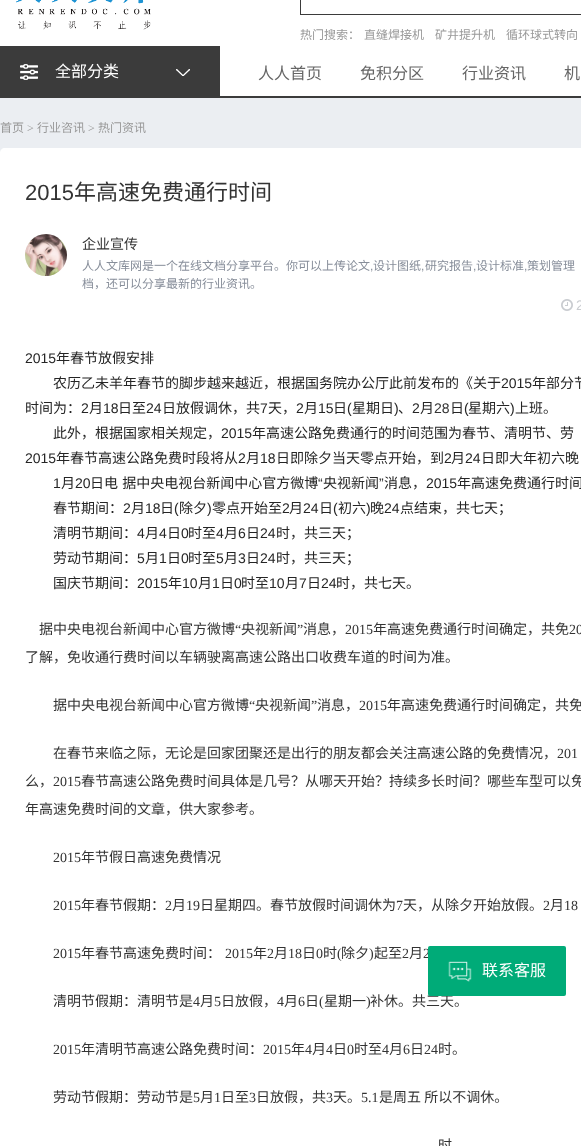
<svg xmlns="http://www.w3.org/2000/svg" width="581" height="1146">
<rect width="100%" height="100%" fill="#ebeef2"/>
<rect width="581" height="96" fill="#fff"/>
<image x="16" y="0" width="135" height="30" href="media/1.png"/>
<rect x="300.5" y="-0.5" width="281" height="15" fill="none" stroke="#3b3b3b"/>
<text x="300" y="39" style="font-family:Noto Sans CJK SC;font-size:12px;fill:#999">热门搜索：</text>
<text x="364" y="39" style="font-family:Noto Sans CJK SC;font-size:12px;fill:#999">直缝焊接机</text>
<text x="435" y="39" style="font-family:Noto Sans CJK SC;font-size:12px;fill:#999">矿井提升机</text>
<text x="506" y="39" style="font-family:Noto Sans CJK SC;font-size:12px;fill:#999">循环球式转向</text>
<rect y="96" width="581" height="2" fill="#3b3b3b"/>
<rect y="46" width="220" height="50" fill="#3b3b3b"/>
<image x="20" y="64" width="18" height="16" href="media/2.png"/>
<text x="55" y="77" style="font-family:Noto Sans CJK SC;font-size:16px;fill:#fff">全部分类</text>
<image x="176" y="69" width="14" height="7" href="media/3.png"/>
<text x="258" y="79" style="font-family:Noto Sans CJK SC;font-size:16px;fill:#666">人人首页</text>
<text x="360" y="79" style="font-family:Noto Sans CJK SC;font-size:16px;fill:#666">免积分区</text>
<text x="462" y="79" style="font-family:Noto Sans CJK SC;font-size:16px;fill:#666">行业资讯</text>
<text x="564" y="79" style="font-family:Noto Sans CJK SC;font-size:16px;fill:#666">机</text>
<text x="0" y="132" style="font-family:Noto Sans CJK SC;font-size:12px;fill:#999">首页</text>
<text x="27" y="132" style="font-family:Liberation Serif;font-size:12px;fill:#999">&gt;</text>
<text x="37" y="132" style="font-family:Noto Sans CJK SC;font-size:12px;fill:#999">行业咨讯</text>
<text x="88" y="132" style="font-family:Liberation Serif;font-size:12px;fill:#999">&gt;</text>
<text x="98" y="132" style="font-family:Noto Sans CJK SC;font-size:12px;fill:#999">热门资讯</text>
<path d="M5 148h576v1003h-576c-3 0-5-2-5-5v-993c0-3 2-5 5-5z" fill="#fff"/>
<text x="25" y="200" style="font-family:Liberation Sans;font-size:22px;fill:#333">2015</text>
<text x="74" y="200" style="font-family:Noto Sans CJK SC;font-size:22px;fill:#333">年高速免费通行时间</text>
<image x="25" y="234" width="42" height="42" href="media/4.png"/>
<text x="82" y="249" style="font-family:Noto Sans CJK SC;font-size:14px;fill:#333">企业宣传</text>
<text x="82" y="270" style="font-family:Noto Sans CJK SC;font-size:12px;fill:#878e9a">人人文库网是一个在线文档分享平台。你可以上传论文</text>
<text x="370" y="270" style="font-family:Liberation Sans;font-size:12px;fill:#878e9a">,</text>
<text x="373" y="270" style="font-family:Noto Sans CJK SC;font-size:12px;fill:#878e9a">设计图纸</text>
<text x="421" y="270" style="font-family:Liberation Sans;font-size:12px;fill:#878e9a">,</text>
<text x="425" y="270" style="font-family:Noto Sans CJK SC;font-size:12px;fill:#878e9a">研究报告</text>
<text x="473" y="270" style="font-family:Liberation Sans;font-size:12px;fill:#878e9a">,</text>
<text x="476" y="270" style="font-family:Noto Sans CJK SC;font-size:12px;fill:#878e9a">设计标准</text>
<text x="524" y="270" style="font-family:Liberation Sans;font-size:12px;fill:#878e9a">,</text>
<text x="527" y="270" style="font-family:Noto Sans CJK SC;font-size:12px;fill:#878e9a">策划管理</text>
<text x="82" y="288" style="font-family:Noto Sans CJK SC;font-size:12px;fill:#878e9a">档，还可以分享最新的行业资讯。</text>
<image x="561" y="299" width="12" height="12" href="media/5.png"/>
<text x="576" y="310" style="font-family:Liberation Sans;font-size:14px;fill:#c9ccd0">2</text>
<text x="25" y="363" style="font-family:Liberation Sans;font-size:14px;fill:#252525">2015</text>
<text x="56" y="363" style="font-family:Noto Sans CJK SC;font-size:14px;fill:#252525">年春节放假安排</text>
<text x="53" y="388" style="font-family:Noto Sans CJK SC;font-size:14px;fill:#252525">农历乙未羊年春节的脚步越来越近，根据国务院办公厅此前发布的《关于</text>
<text x="501" y="388" style="font-family:Liberation Sans;font-size:14px;fill:#252525">2015</text>
<text x="532" y="388" style="font-family:Noto Sans CJK SC;font-size:14px;fill:#252525">年部分节</text>
<text x="25" y="413" style="font-family:Noto Sans CJK SC;font-size:14px;fill:#252525">时间为：</text>
<text x="81" y="413" style="font-family:Liberation Sans;font-size:14px;fill:#252525">2</text>
<text x="89" y="413" style="font-family:Noto Sans CJK SC;font-size:14px;fill:#252525">月</text>
<text x="103" y="413" style="font-family:Liberation Sans;font-size:14px;fill:#252525">18</text>
<text x="118" y="413" style="font-family:Noto Sans CJK SC;font-size:14px;fill:#252525">日至</text>
<text x="146" y="413" style="font-family:Liberation Sans;font-size:14px;fill:#252525">24</text>
<text x="162" y="413" style="font-family:Noto Sans CJK SC;font-size:14px;fill:#252525">日放假调休，共</text>
<text x="260" y="413" style="font-family:Liberation Sans;font-size:14px;fill:#252525">7</text>
<text x="268" y="413" style="font-family:Noto Sans CJK SC;font-size:14px;fill:#252525">天，</text>
<text x="296" y="413" style="font-family:Liberation Sans;font-size:14px;fill:#252525">2</text>
<text x="304" y="413" style="font-family:Noto Sans CJK SC;font-size:14px;fill:#252525">月</text>
<text x="318" y="413" style="font-family:Liberation Sans;font-size:14px;fill:#252525">15</text>
<text x="333" y="413" style="font-family:Noto Sans CJK SC;font-size:14px;fill:#252525">日</text>
<text x="347" y="413" style="font-family:Liberation Sans;font-size:14px;fill:#252525">(</text>
<text x="352" y="413" style="font-family:Noto Sans CJK SC;font-size:14px;fill:#252525">星期日</text>
<text x="394" y="413" style="font-family:Liberation Sans;font-size:14px;fill:#252525">)</text>
<text x="398" y="413" style="font-family:Noto Sans CJK SC;font-size:14px;fill:#252525">、</text>
<text x="412" y="413" style="font-family:Liberation Sans;font-size:14px;fill:#252525">2</text>
<text x="420" y="413" style="font-family:Noto Sans CJK SC;font-size:14px;fill:#252525">月</text>
<text x="434" y="413" style="font-family:Liberation Sans;font-size:14px;fill:#333">28</text>
<text x="450" y="413" style="font-family:Noto Sans CJK SC;font-size:14px;fill:#252525">日</text>
<text x="464" y="413" style="font-family:Liberation Sans;font-size:14px;fill:#252525">(</text>
<text x="468" y="413" style="font-family:Noto Sans CJK SC;font-size:14px;fill:#252525">星期六</text>
<text x="510" y="413" style="font-family:Liberation Sans;font-size:14px;fill:#252525">)</text>
<text x="515" y="413" style="font-family:Noto Sans CJK SC;font-size:14px;fill:#252525">上班。</text>
<text x="53" y="438" style="font-family:Noto Sans CJK SC;font-size:14px;fill:#252525">此外，根据国家相关规定，</text>
<text x="221" y="438" style="font-family:Liberation Sans;font-size:14px;fill:#252525">2015</text>
<text x="252" y="438" style="font-family:Noto Sans CJK SC;font-size:14px;fill:#252525">年高速公路免费通行的时间范围为春节、清明节、劳</text>
<text x="25" y="463" style="font-family:Liberation Sans;font-size:14px;fill:#252525">2015</text>
<text x="56" y="463" style="font-family:Noto Sans CJK SC;font-size:14px;fill:#252525">年春节高速公路免费时段将从</text>
<text x="238" y="463" style="font-family:Liberation Sans;font-size:14px;fill:#252525">2</text>
<text x="246" y="463" style="font-family:Noto Sans CJK SC;font-size:14px;fill:#252525">月</text>
<text x="260" y="463" style="font-family:Liberation Sans;font-size:14px;fill:#252525">18</text>
<text x="276" y="463" style="font-family:Noto Sans CJK SC;font-size:14px;fill:#252525">日即除夕当天零点开始，到</text>
<text x="444" y="463" style="font-family:Liberation Sans;font-size:14px;fill:#252525">2</text>
<text x="451" y="463" style="font-family:Noto Sans CJK SC;font-size:14px;fill:#252525">月</text>
<text x="465" y="463" style="font-family:Liberation Sans;font-size:14px;fill:#252525">24</text>
<text x="481" y="463" style="font-family:Noto Sans CJK SC;font-size:14px;fill:#252525">日即大年初六晚</text>
<text x="53" y="488" style="font-family:Liberation Sans;font-size:14px;fill:#252525">1</text>
<text x="61" y="488" style="font-family:Noto Sans CJK SC;font-size:14px;fill:#252525">月</text>
<text x="75" y="488" style="font-family:Liberation Sans;font-size:14px;fill:#252525">20</text>
<text x="90" y="488" word-spacing="1" style="font-family:Noto Sans CJK SC;font-size:14px;fill:#252525">日电 据中央电视台新闻中心官方微博</text>
<text x="318" y="488" style="font-family:Liberation Sans;font-size:14px;fill:#252525">“</text>
<text x="323" y="488" style="font-family:Noto Sans CJK SC;font-size:14px;fill:#252525">央视新闻</text>
<text x="379" y="488" style="font-family:Liberation Sans;font-size:14px;fill:#252525">”</text>
<text x="384" y="488" style="font-family:Noto Sans CJK SC;font-size:14px;fill:#252525">消息，</text>
<text x="426" y="488" style="font-family:Liberation Sans;font-size:14px;fill:#252525">2015</text>
<text x="457" y="488" style="font-family:Noto Sans CJK SC;font-size:14px;fill:#252525">年高速免费通行时间</text>
<text x="53" y="513" style="font-family:Noto Sans CJK SC;font-size:14px;fill:#252525">春节期间：</text>
<text x="123" y="513" style="font-family:Liberation Sans;font-size:14px;fill:#252525">2</text>
<text x="131" y="513" style="font-family:Noto Sans CJK SC;font-size:14px;fill:#252525">月</text>
<text x="145" y="513" style="font-family:Liberation Sans;font-size:14px;fill:#252525">18</text>
<text x="160" y="513" style="font-family:Noto Sans CJK SC;font-size:14px;fill:#252525">日</text>
<text x="174" y="513" style="font-family:Liberation Sans;font-size:14px;fill:#252525">(</text>
<text x="179" y="513" style="font-family:Noto Sans CJK SC;font-size:14px;fill:#252525">除夕</text>
<text x="207" y="513" style="font-family:Liberation Sans;font-size:14px;fill:#252525">)</text>
<text x="212" y="513" style="font-family:Noto Sans CJK SC;font-size:14px;fill:#252525">零点开始至</text>
<text x="282" y="513" style="font-family:Liberation Sans;font-size:14px;fill:#252525">2</text>
<text x="289" y="513" style="font-family:Noto Sans CJK SC;font-size:14px;fill:#252525">月</text>
<text x="303" y="513" style="font-family:Liberation Sans;font-size:14px;fill:#252525">24</text>
<text x="319" y="513" style="font-family:Noto Sans CJK SC;font-size:14px;fill:#252525">日</text>
<text x="333" y="513" style="font-family:Liberation Sans;font-size:14px;fill:#252525">(</text>
<text x="338" y="513" style="font-family:Noto Sans CJK SC;font-size:14px;fill:#252525">初六</text>
<text x="366" y="513" style="font-family:Liberation Sans;font-size:14px;fill:#252525">)</text>
<text x="370" y="513" style="font-family:Noto Sans CJK SC;font-size:14px;fill:#252525">晚</text>
<text x="384" y="513" style="font-family:Liberation Sans;font-size:14px;fill:#252525">24</text>
<text x="400" y="513" style="font-family:Noto Sans CJK SC;font-size:14px;fill:#252525">点结束，共七天；</text>
<text x="53" y="538" style="font-family:Noto Sans CJK SC;font-size:14px;fill:#252525">清明节期间：</text>
<text x="137" y="538" style="font-family:Liberation Sans;font-size:14px;fill:#252525">4</text>
<text x="145" y="538" style="font-family:Noto Sans CJK SC;font-size:14px;fill:#252525">月</text>
<text x="159" y="538" style="font-family:Liberation Sans;font-size:14px;fill:#252525">4</text>
<text x="167" y="538" style="font-family:Noto Sans CJK SC;font-size:14px;fill:#252525">日</text>
<text x="181" y="538" style="font-family:Liberation Sans;font-size:14px;fill:#252525">0</text>
<text x="188" y="538" style="font-family:Noto Sans CJK SC;font-size:14px;fill:#252525">时至</text>
<text x="216" y="538" style="font-family:Liberation Sans;font-size:14px;fill:#252525">4</text>
<text x="224" y="538" style="font-family:Noto Sans CJK SC;font-size:14px;fill:#252525">月</text>
<text x="238" y="538" style="font-family:Liberation Sans;font-size:14px;fill:#252525">6</text>
<text x="246" y="538" style="font-family:Noto Sans CJK SC;font-size:14px;fill:#252525">日</text>
<text x="260" y="538" style="font-family:Liberation Sans;font-size:14px;fill:#252525">24</text>
<text x="276" y="538" style="font-family:Noto Sans CJK SC;font-size:14px;fill:#252525">时，共三天；</text>
<text x="53" y="563" style="font-family:Noto Sans CJK SC;font-size:14px;fill:#252525">劳动节期间：</text>
<text x="137" y="563" style="font-family:Liberation Sans;font-size:14px;fill:#252525">5</text>
<text x="145" y="563" style="font-family:Noto Sans CJK SC;font-size:14px;fill:#252525">月</text>
<text x="159" y="563" style="font-family:Liberation Sans;font-size:14px;fill:#252525">1</text>
<text x="167" y="563" style="font-family:Noto Sans CJK SC;font-size:14px;fill:#252525">日</text>
<text x="181" y="563" style="font-family:Liberation Sans;font-size:14px;fill:#252525">0</text>
<text x="188" y="563" style="font-family:Noto Sans CJK SC;font-size:14px;fill:#252525">时至</text>
<text x="216" y="563" style="font-family:Liberation Sans;font-size:14px;fill:#252525">5</text>
<text x="224" y="563" style="font-family:Noto Sans CJK SC;font-size:14px;fill:#252525">月</text>
<text x="238" y="563" style="font-family:Liberation Sans;font-size:14px;fill:#252525">3</text>
<text x="246" y="563" style="font-family:Noto Sans CJK SC;font-size:14px;fill:#252525">日</text>
<text x="260" y="563" style="font-family:Liberation Sans;font-size:14px;fill:#252525">24</text>
<text x="276" y="563" style="font-family:Noto Sans CJK SC;font-size:14px;fill:#252525">时，共三天；</text>
<text x="53" y="588" style="font-family:Noto Sans CJK SC;font-size:14px;fill:#252525">国庆节期间：</text>
<text x="137" y="588" style="font-family:Liberation Sans;font-size:14px;fill:#252525">2015</text>
<text x="168" y="588" style="font-family:Noto Sans CJK SC;font-size:14px;fill:#252525">年</text>
<text x="182" y="588" style="font-family:Liberation Sans;font-size:14px;fill:#252525">10</text>
<text x="198" y="588" style="font-family:Noto Sans CJK SC;font-size:14px;fill:#252525">月</text>
<text x="212" y="588" style="font-family:Liberation Sans;font-size:14px;fill:#252525">1</text>
<text x="220" y="588" style="font-family:Noto Sans CJK SC;font-size:14px;fill:#252525">日</text>
<text x="234" y="588" style="font-family:Liberation Sans;font-size:14px;fill:#252525">0</text>
<text x="241" y="588" style="font-family:Noto Sans CJK SC;font-size:14px;fill:#252525">时至</text>
<text x="269" y="588" style="font-family:Liberation Sans;font-size:14px;fill:#252525">10</text>
<text x="285" y="588" style="font-family:Noto Sans CJK SC;font-size:14px;fill:#252525">月</text>
<text x="299" y="588" style="font-family:Liberation Sans;font-size:14px;fill:#252525">7</text>
<text x="307" y="588" style="font-family:Noto Sans CJK SC;font-size:14px;fill:#252525">日</text>
<text x="321" y="588" style="font-family:Liberation Sans;font-size:14px;fill:#252525">24</text>
<text x="336" y="588" style="font-family:Noto Sans CJK SC;font-size:14px;fill:#252525">时，共七天。</text>
<text x="39" y="634" style="font-family:Noto Sans CJK SC;font-size:14px;fill:#333">据中央电视台新闻中心官方微博</text>
<text x="235" y="634" style="font-family:Liberation Serif;font-size:14px;fill:#333">“</text>
<text x="241" y="634" style="font-family:Noto Sans CJK SC;font-size:14px;fill:#333">央视新闻</text>
<text x="297" y="634" style="font-family:Liberation Serif;font-size:14px;fill:#333">”</text>
<text x="303" y="634" style="font-family:Noto Sans CJK SC;font-size:14px;fill:#333">消息，</text>
<text x="345" y="634" style="font-family:Liberation Serif;font-size:14px;fill:#333">2015</text>
<text x="373" y="634" style="font-family:Noto Sans CJK SC;font-size:14px;fill:#333">年高速免费通行时间确定，共免</text>
<text x="569" y="634" style="font-family:Liberation Serif;font-size:14px;fill:#333">20</text>
<text x="25" y="662" style="font-family:Noto Sans CJK SC;font-size:14px;fill:#333">了解，免收通行费时间以车辆驶离高速公路出口收费车道的时间为准。</text>
<text x="53" y="710" style="font-family:Noto Sans CJK SC;font-size:14px;fill:#333">据中央电视台新闻中心官方微博</text>
<text x="249" y="710" style="font-family:Liberation Serif;font-size:14px;fill:#333">“</text>
<text x="255" y="710" style="font-family:Noto Sans CJK SC;font-size:14px;fill:#333">央视新闻</text>
<text x="311" y="710" style="font-family:Liberation Serif;font-size:14px;fill:#333">”</text>
<text x="317" y="710" style="font-family:Noto Sans CJK SC;font-size:14px;fill:#333">消息，</text>
<text x="359" y="710" style="font-family:Liberation Serif;font-size:14px;fill:#333">2015</text>
<text x="387" y="710" style="font-family:Noto Sans CJK SC;font-size:14px;fill:#333">年高速免费通行时间确定，共免</text>
<text x="53" y="758" style="font-family:Noto Sans CJK SC;font-size:14px;fill:#333">在春节来临之际，无论是回家团聚还是出行的朋友都会关注高速公路的免费情况，</text>
<text x="557" y="758" style="font-family:Liberation Serif;font-size:14px;fill:#333">201</text>
<text x="25" y="786" style="font-family:Noto Sans CJK SC;font-size:14px;fill:#333">么，</text>
<text x="53" y="786" style="font-family:Liberation Serif;font-size:14px;fill:#333">2015</text>
<text x="81" y="786" style="font-family:Noto Sans CJK SC;font-size:14px;fill:#333">春节高速公路免费时间具体是几号？从哪天开始？持续多长时间？哪些车型可以免</text>
<text x="25" y="814" style="font-family:Noto Sans CJK SC;font-size:14px;fill:#333">年高速免费时间的文章，供大家参考。</text>
<text x="53" y="862" style="font-family:Liberation Serif;font-size:14px;fill:#333">2015</text>
<text x="81" y="862" style="font-family:Noto Sans CJK SC;font-size:14px;fill:#333">年节假日高速免费情况</text>
<text x="53" y="910" style="font-family:Liberation Serif;font-size:14px;fill:#333">2015</text>
<text x="81" y="910" style="font-family:Noto Sans CJK SC;font-size:14px;fill:#333">年春节假期：</text>
<text x="165" y="910" style="font-family:Liberation Serif;font-size:14px;fill:#333">2</text>
<text x="172" y="910" style="font-family:Noto Sans CJK SC;font-size:14px;fill:#333">月</text>
<text x="186" y="910" style="font-family:Liberation Serif;font-size:14px;fill:#333">19</text>
<text x="200" y="910" style="font-family:Noto Sans CJK SC;font-size:14px;fill:#333">日星期四。春节放假时间调休为</text>
<text x="396" y="910" style="font-family:Liberation Serif;font-size:14px;fill:#333">7</text>
<text x="403" y="910" style="font-family:Noto Sans CJK SC;font-size:14px;fill:#333">天，从除夕开始放假。</text>
<text x="543" y="910" style="font-family:Liberation Serif;font-size:14px;fill:#333">2</text>
<text x="550" y="910" style="font-family:Noto Sans CJK SC;font-size:14px;fill:#333">月</text>
<text x="564" y="910" style="font-family:Liberation Serif;font-size:14px;fill:#333">18</text>
<text x="53" y="958" style="font-family:Liberation Serif;font-size:14px;fill:#333">2015</text>
<text x="81" y="958" style="font-family:Noto Sans CJK SC;font-size:14px;fill:#333">年春节高速免费时间：</text>
<text x="225" y="958" style="font-family:Liberation Serif;font-size:14px;fill:#333">2015</text>
<text x="253" y="958" style="font-family:Noto Sans CJK SC;font-size:14px;fill:#333">年</text>
<text x="267" y="958" style="font-family:Liberation Serif;font-size:14px;fill:#333">2</text>
<text x="274" y="958" style="font-family:Noto Sans CJK SC;font-size:14px;fill:#333">月</text>
<text x="288" y="958" style="font-family:Liberation Serif;font-size:14px;fill:#333">18</text>
<text x="302" y="958" style="font-family:Noto Sans CJK SC;font-size:14px;fill:#333">日</text>
<text x="316" y="958" style="font-family:Liberation Serif;font-size:14px;fill:#333">0</text>
<text x="323" y="958" style="font-family:Noto Sans CJK SC;font-size:14px;fill:#333">时</text>
<text x="337" y="958" style="font-family:Liberation Serif;font-size:14px;fill:#333">(</text>
<text x="341" y="958" style="font-family:Noto Sans CJK SC;font-size:14px;fill:#333">除夕</text>
<text x="369" y="958" style="font-family:Liberation Serif;font-size:14px;fill:#333">)</text>
<text x="374" y="958" style="font-family:Noto Sans CJK SC;font-size:14px;fill:#333">起至</text>
<text x="402" y="958" style="font-family:Liberation Serif;font-size:14px;fill:#333">2</text>
<text x="409" y="958" style="font-family:Noto Sans CJK SC;font-size:14px;fill:#333">月</text>
<text x="423" y="958" style="font-family:Liberation Serif;font-size:14px;fill:#333">2</text>
<text x="53" y="1006" style="font-family:Noto Sans CJK SC;font-size:14px;fill:#333">清明节假期：清明节是</text>
<text x="193" y="1006" style="font-family:Liberation Serif;font-size:14px;fill:#333">4</text>
<text x="200" y="1006" style="font-family:Noto Sans CJK SC;font-size:14px;fill:#333">月</text>
<text x="214" y="1006" style="font-family:Liberation Serif;font-size:14px;fill:#333">5</text>
<text x="221" y="1006" style="font-family:Noto Sans CJK SC;font-size:14px;fill:#333">日放假，</text>
<text x="277" y="1006" style="font-family:Liberation Serif;font-size:14px;fill:#333">4</text>
<text x="284" y="1006" style="font-family:Noto Sans CJK SC;font-size:14px;fill:#333">月</text>
<text x="298" y="1006" style="font-family:Liberation Serif;font-size:14px;fill:#333">6</text>
<text x="305" y="1006" style="font-family:Noto Sans CJK SC;font-size:14px;fill:#333">日</text>
<text x="319" y="1006" style="font-family:Liberation Serif;font-size:14px;fill:#333">(</text>
<text x="324" y="1006" style="font-family:Noto Sans CJK SC;font-size:14px;fill:#333">星期一</text>
<text x="366" y="1006" style="font-family:Liberation Serif;font-size:14px;fill:#333">)</text>
<text x="370" y="1006" style="font-family:Noto Sans CJK SC;font-size:14px;fill:#333">补休。共三天。</text>
<text x="53" y="1054" style="font-family:Liberation Serif;font-size:14px;fill:#333">2015</text>
<text x="81" y="1054" style="font-family:Noto Sans CJK SC;font-size:14px;fill:#333">年清明节高速公路免费时间：</text>
<text x="263" y="1054" style="font-family:Liberation Serif;font-size:14px;fill:#333">2015</text>
<text x="291" y="1054" style="font-family:Noto Sans CJK SC;font-size:14px;fill:#333">年</text>
<text x="305" y="1054" style="font-family:Liberation Serif;font-size:14px;fill:#333">4</text>
<text x="312" y="1054" style="font-family:Noto Sans CJK SC;font-size:14px;fill:#333">月</text>
<text x="326" y="1054" style="font-family:Liberation Serif;font-size:14px;fill:#333">4</text>
<text x="333" y="1054" style="font-family:Noto Sans CJK SC;font-size:14px;fill:#333">日</text>
<text x="347" y="1054" style="font-family:Liberation Serif;font-size:14px;fill:#333">0</text>
<text x="354" y="1054" style="font-family:Noto Sans CJK SC;font-size:14px;fill:#333">时至</text>
<text x="382" y="1054" style="font-family:Liberation Serif;font-size:14px;fill:#333">4</text>
<text x="389" y="1054" style="font-family:Noto Sans CJK SC;font-size:14px;fill:#333">月</text>
<text x="403" y="1054" style="font-family:Liberation Serif;font-size:14px;fill:#333">6</text>
<text x="410" y="1054" style="font-family:Noto Sans CJK SC;font-size:14px;fill:#333">日</text>
<text x="424" y="1054" style="font-family:Liberation Serif;font-size:14px;fill:#333">24</text>
<text x="438" y="1054" style="font-family:Noto Sans CJK SC;font-size:14px;fill:#333">时。</text>
<text x="53" y="1102" style="font-family:Noto Sans CJK SC;font-size:14px;fill:#333">劳动节假期：劳动节是</text>
<text x="193" y="1102" style="font-family:Liberation Serif;font-size:14px;fill:#333">5</text>
<text x="200" y="1102" style="font-family:Noto Sans CJK SC;font-size:14px;fill:#333">月</text>
<text x="214" y="1102" style="font-family:Liberation Serif;font-size:14px;fill:#333">1</text>
<text x="221" y="1102" style="font-family:Noto Sans CJK SC;font-size:14px;fill:#333">日至</text>
<text x="249" y="1102" style="font-family:Liberation Serif;font-size:14px;fill:#333">3</text>
<text x="256" y="1102" style="font-family:Noto Sans CJK SC;font-size:14px;fill:#333">日放假，共</text>
<text x="326" y="1102" style="font-family:Liberation Serif;font-size:14px;fill:#333">3</text>
<text x="333" y="1102" style="font-family:Noto Sans CJK SC;font-size:14px;fill:#333">天。</text>
<text x="361" y="1102" style="font-family:Liberation Serif;font-size:14px;fill:#333">5.1</text>
<text x="379" y="1102" style="font-family:Noto Sans CJK SC;font-size:14px;fill:#333">是周五 所以不调休。</text>
<text x="438" y="1150" style="font-family:Noto Sans CJK SC;font-size:14px;fill:#333">时</text>
<rect x="428" y="946" width="138" height="50" rx="2" fill="#00ab78"/>
<image x="448" y="961" width="24" height="21" href="media/6.png"/>
<text x="482" y="976" style="font-family:Noto Sans CJK SC;font-size:16px;fill:#fff">联系客服</text>
</svg>
